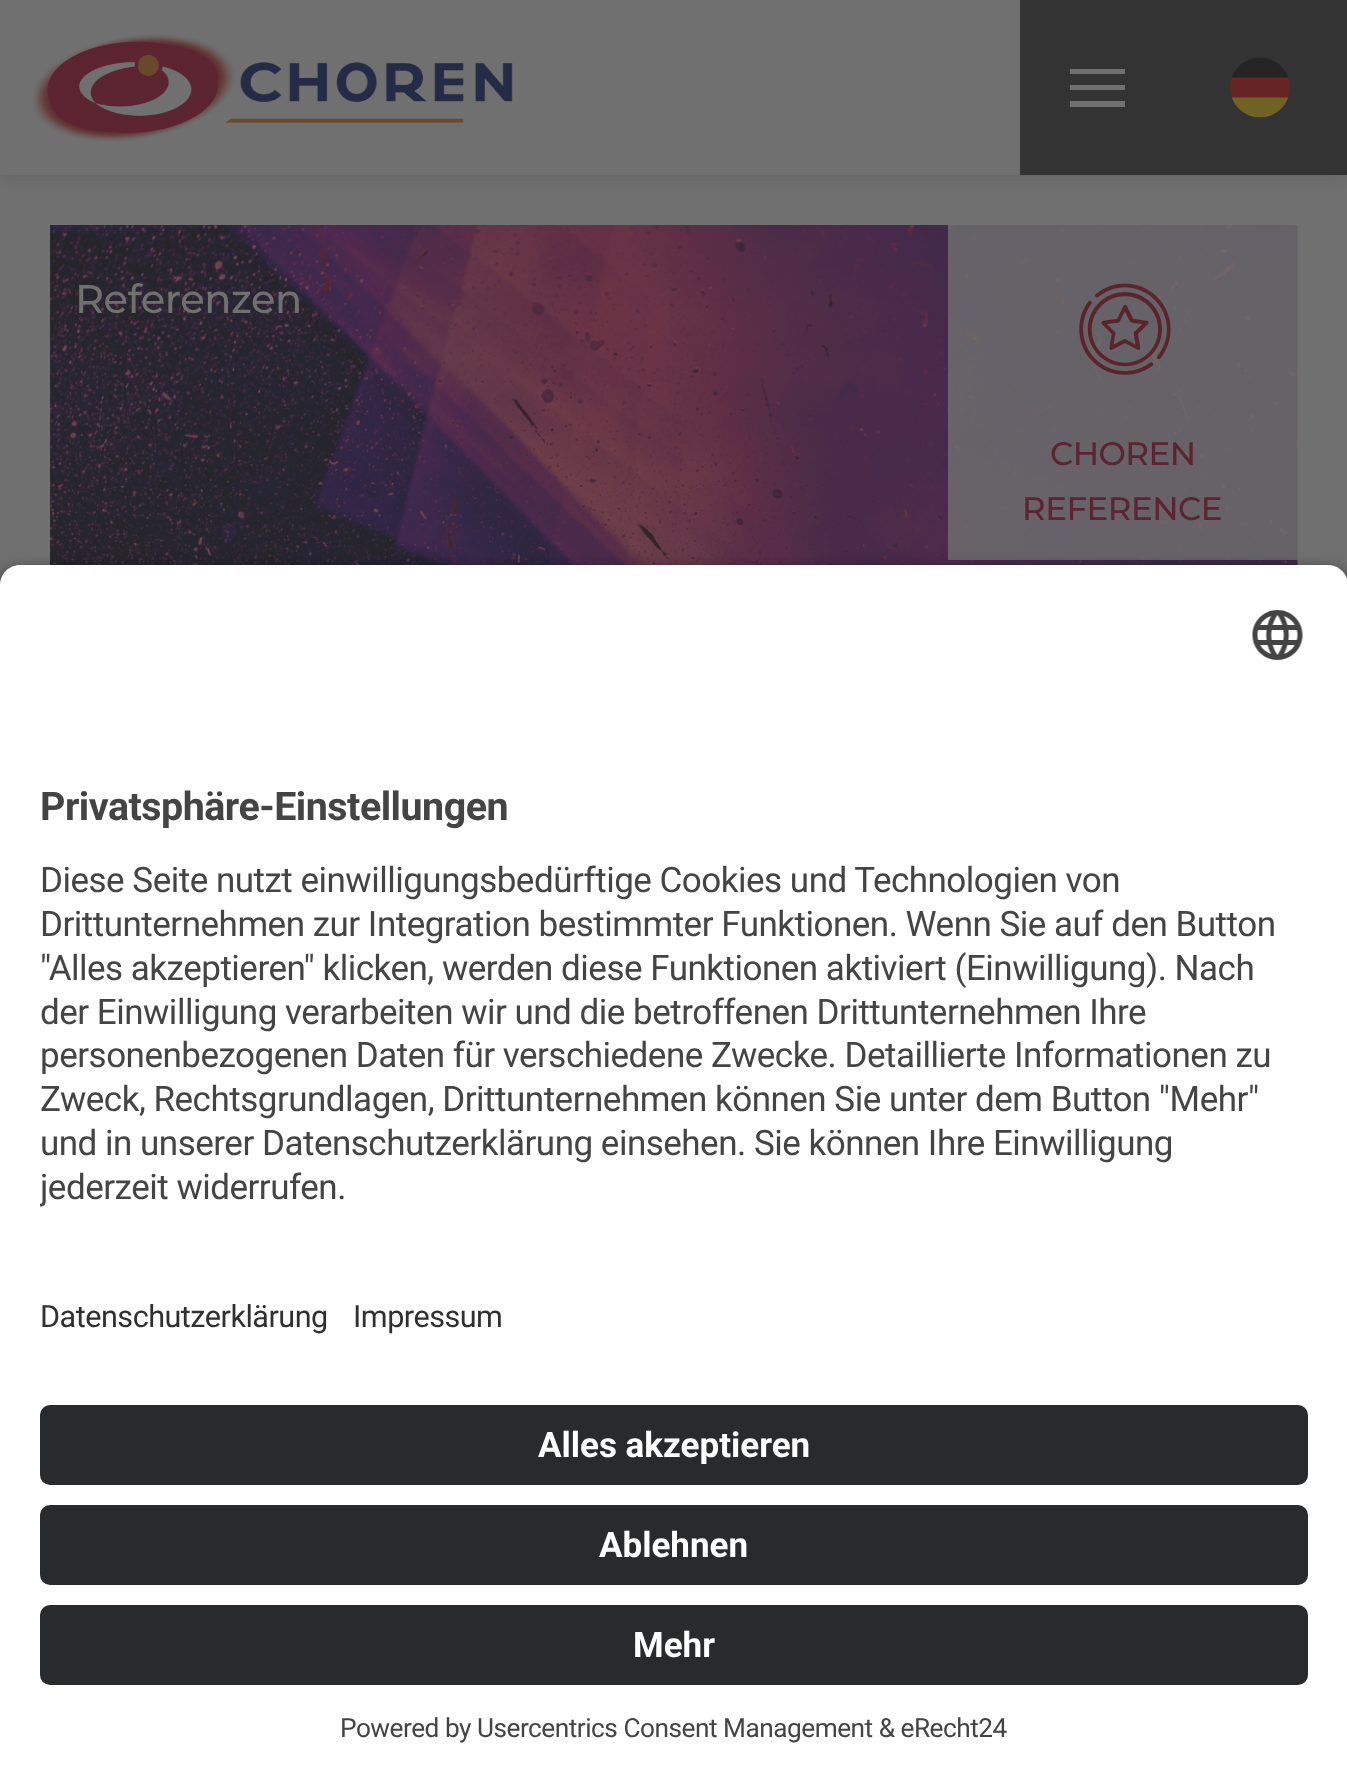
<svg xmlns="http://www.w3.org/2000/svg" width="1347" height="1785">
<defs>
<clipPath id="clip1"><rect x="40" y="850" width="1268" height="370"/></clipPath>
</defs>
<rect width="100%" height="100%" fill="#707070"/>
<rect width="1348" height="175" fill="#24242433" filter="blur(10px)"/>
<rect width="1020" height="175" fill="#707070"/>
<image x="31" y="34" width="482" height="108" href="media/1.png"/>
<rect x="1020" width="327" height="175" fill="#333"/>
<path d="M1070 69h55v5h-55zm0 16h55v5h-55zm0 16h55v6h-55z" fill="#707070"/>
<image x="1230" y="57" width="60" height="61" href="media/2.png"/>
<image x="50" y="225" width="1248" height="340" href="media/3.png"/>
<text x="75" y="313" style="font-family:Montserrat;font-size:40px;font-weight:500;letter-spacing:-0.5px;fill:#707070">Referenzen</text>
<rect x="948" y="225" width="350" height="335" fill="#707070cc"/>
<image x="1079" y="283" width="92" height="92" href="media/4.png"/>
<text x="1050" y="465" style="font-family:Montserrat;font-size:32.5px;font-weight:500;letter-spacing:-0.5px;fill:#5b2430">CHOREN</text>
<text x="1022" y="520" style="font-family:Montserrat;font-size:32.5px;font-weight:500;letter-spacing:-0.5px;fill:#5b2430">REFERENCE</text>
<rect y="573" width="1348" height="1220" rx="20" fill="#000000cc" filter="blur(9px)"/>
<path d="M20 565h1308c11 0 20 9 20 20v675h-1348v-675c0-11 9-20 20-20z" fill="#fff"/>
<image x="1252" y="610" width="51" height="50" href="media/5.png"/>
<text x="40" y="820" style="font-family:Roboto;font-size:39.4px;font-weight:bold;letter-spacing:-0.5px;fill:#444">Privatsphäre-Einstellungen</text>
<text x="40" y="892" style="font-family:Roboto;font-size:35px;letter-spacing:-0.5px;fill:#444">Diese Seite nutzt einwilligungsbedürftige Cookies und Technologien von</text>
<text x="40" y="936" style="font-family:Roboto;font-size:35px;letter-spacing:-0.5px;fill:#444">Drittunternehmen zur Integration bestimmter Funktionen. Wenn Sie auf den Button</text>
<text x="40" y="980" style="font-family:Roboto;font-size:35px;letter-spacing:-0.5px;fill:#444">"Alles akzeptieren" klicken, werden diese Funktionen aktiviert (Einwilligung). Nach</text>
<text x="40" y="1024" style="font-family:Roboto;font-size:35px;letter-spacing:-0.5px;fill:#444">der Einwilligung verarbeiten wir und die betroffenen Drittunternehmen Ihre</text>
<text x="40" y="1067" style="font-family:Roboto;font-size:35px;letter-spacing:-0.5px;fill:#444">personenbezogenen Daten für verschiedene Zwecke. Detaillierte Informationen zu</text>
<text x="40" y="1111" style="font-family:Roboto;font-size:35px;letter-spacing:-0.5px;fill:#444">Zweck, Rechtsgrundlagen, Drittunternehmen können Sie unter dem Button "Mehr"</text>
<text x="40" y="1155" style="font-family:Roboto;font-size:35px;letter-spacing:-0.5px;fill:#444">und in unserer Datenschutzerklärung einsehen. Sie können Ihre Einwilligung</text>
<g clip-path="url(#clip1)">
<text x="40" y="1199" style="font-family:Roboto;font-size:35px;letter-spacing:-0.5px;fill:#444">jederzeit widerrufen.</text>
</g>
<rect y="1260" width="1347" height="525" fill="#fff"/>
<text x="40" y="1327" style="font-family:Roboto;font-size:30.6px;letter-spacing:-0.5px;fill:#303030">Datenschutzerklärung</text>
<text x="353" y="1327" style="font-family:Roboto;font-size:30.6px;letter-spacing:-0.5px;fill:#303030">Impressum</text>
<rect x="40" y="1405" width="1268" height="80" rx="10" fill="#292a2b"/>
<text x="538" y="1457" style="font-family:Roboto;font-size:35px;font-weight:bold;fill:#fff">Alles akzeptieren</text>
<rect x="40" y="1505" width="1268" height="80" rx="10" fill="#292a2b"/>
<text x="599" y="1557" style="font-family:Roboto;font-size:35px;font-weight:bold;fill:#fff">Ablehnen</text>
<rect x="40" y="1605" width="1268" height="80" rx="10" fill="#292a2b"/>
<text x="633" y="1657" style="font-family:Roboto;font-size:35px;font-weight:bold;fill:#fff">Mehr</text>
<text x="340" y="1737" style="font-family:Roboto;font-size:26.25px;letter-spacing:-0.5px;fill:#444">Powered by Usercentrics Consent Management &amp; eRecht24</text>
</svg>
